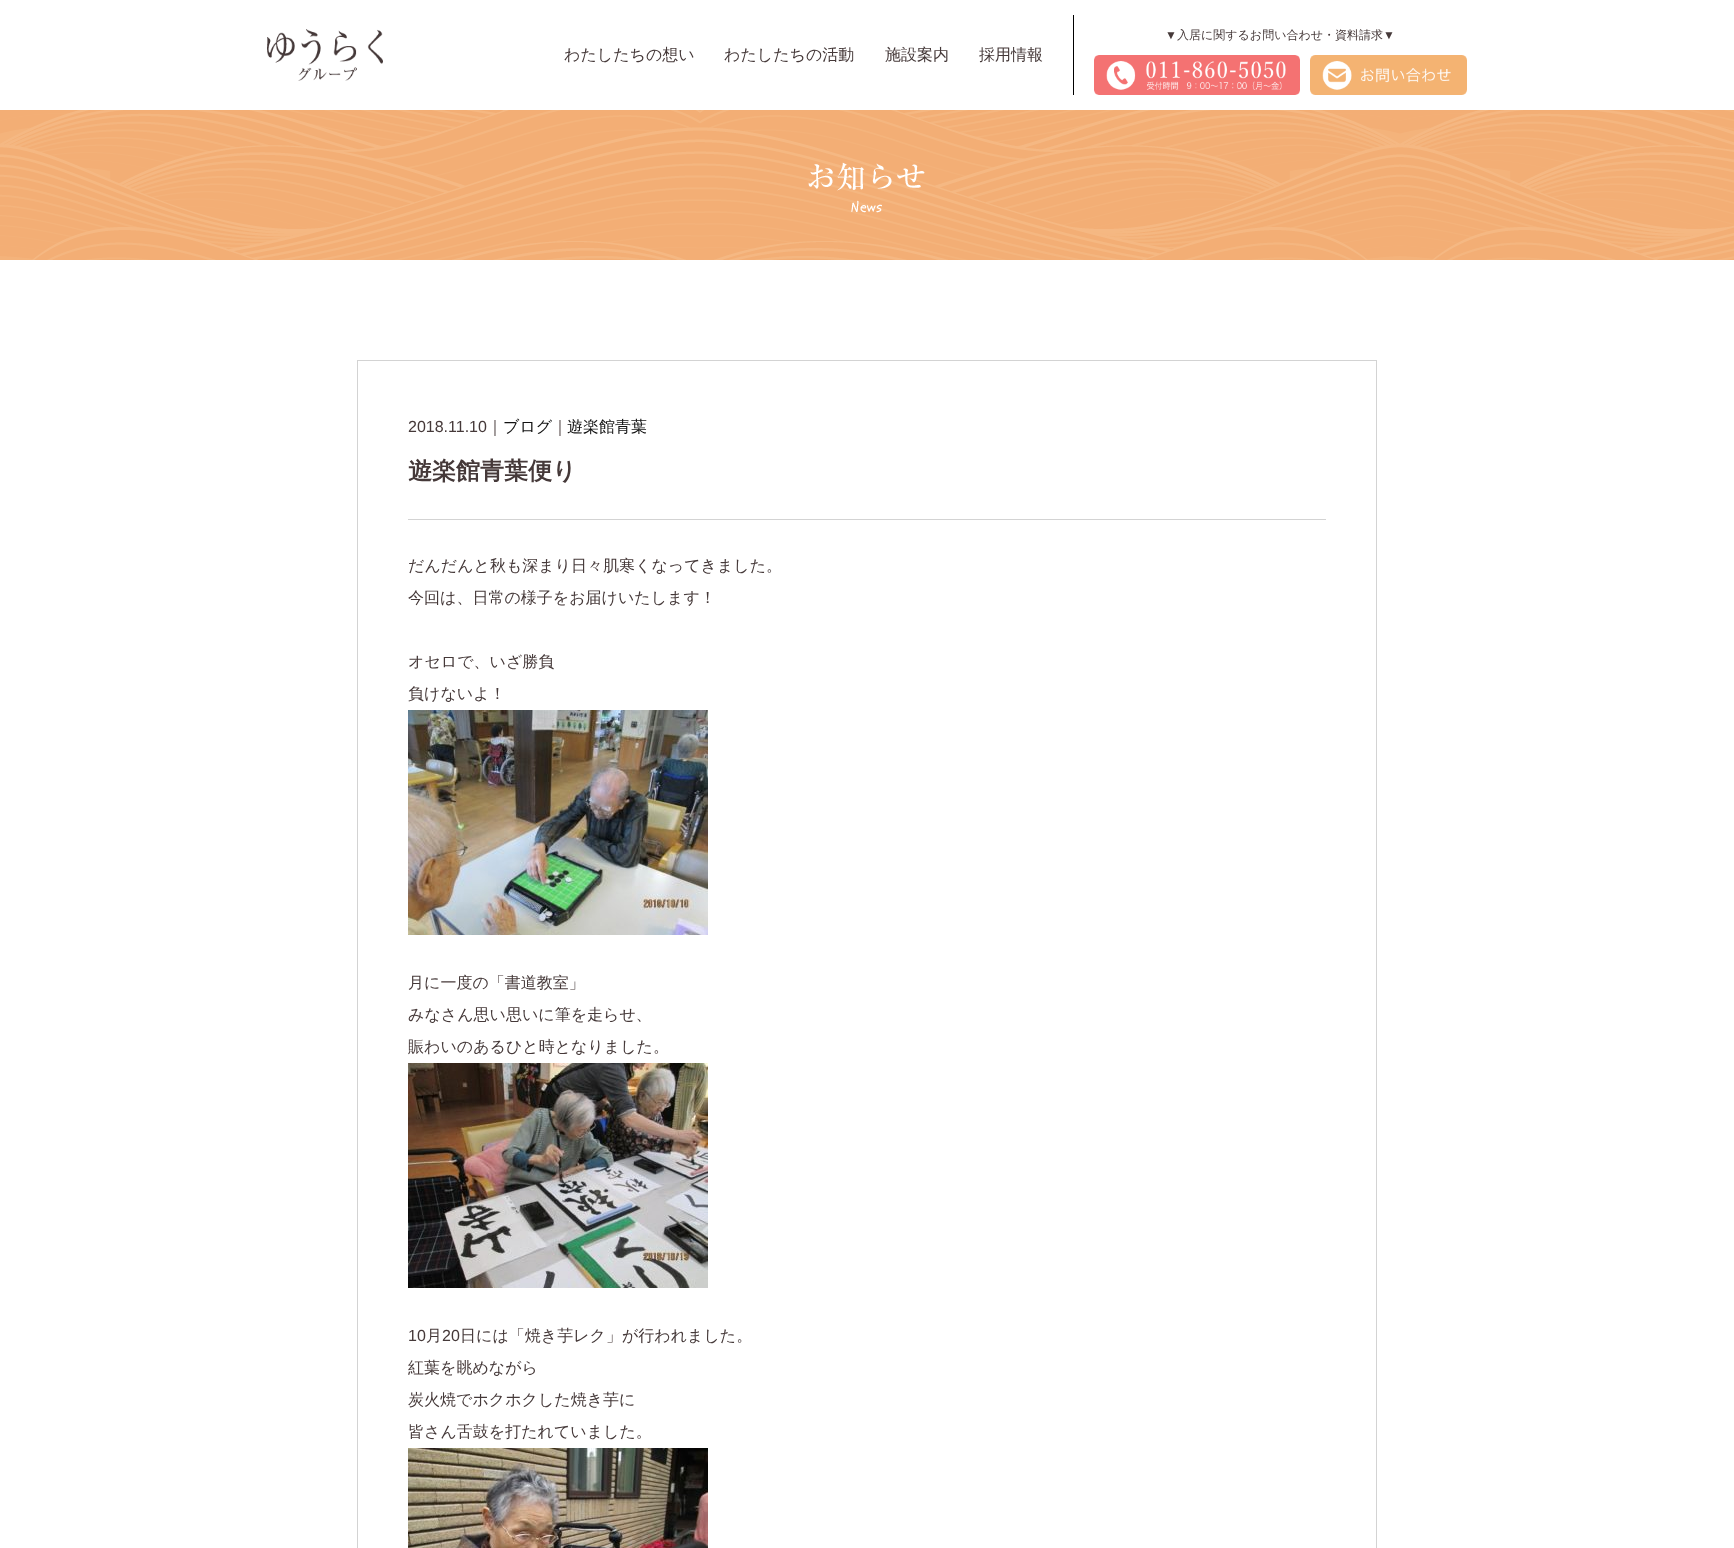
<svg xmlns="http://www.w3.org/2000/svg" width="1734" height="1548">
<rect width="100%" height="100%" fill="#fff"/>
<image x="267" y="29" width="116" height="52" href="media/1.png"/>
<rect x="1073" y="15" width="1" height="80" fill="#000"/>
<text x="1165" y="39" style="font-family:Liberation Sans;font-size:12px;fill:#453939">▼</text>
<text x="1177" y="39" style="font-family:WenQuanYi Zen Hei;font-size:12px;font-weight:500;fill:#453939">入居に関するお問い合わせ・資料請求</text>
<text x="1383" y="39" style="font-family:Liberation Sans;font-size:12px;fill:#453939">▼</text>
<image x="1094" y="55" width="206" height="40" href="media/2.png"/>
<image x="1310" y="55" width="157" height="40" href="media/3.png"/>
<text x="564" y="60" style="font-family:WenQuanYi Zen Hei;font-size:16px;font-weight:500;fill:#453939">わたしたちの想い</text>
<text x="724" y="60" style="font-family:WenQuanYi Zen Hei;font-size:16px;font-weight:500;fill:#453939">わたしたちの活動</text>
<text x="885" y="60" style="font-family:WenQuanYi Zen Hei;font-size:16px;font-weight:500;fill:#453939">施設案内</text>
<text x="979" y="60" style="font-family:WenQuanYi Zen Hei;font-size:16px;font-weight:500;fill:#453939">採用情報</text>
<image x="0" y="110" width="1734" height="150" href="media/4.png"/>
<image x="808" y="162" width="117" height="51" href="media/5.png"/>
<rect x="357.5" y="360.5" width="1019" height="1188" fill="none" stroke="#d3d3d3"/>
<text x="408" y="432" style="font-family:Liberation Sans;font-size:16px;fill:#453939">2018.11.10</text>
<text x="487" y="432" style="font-family:WenQuanYi Zen Hei;font-size:16px;font-weight:500;fill:#453939">｜</text>
<text x="503" y="432" style="font-family:WenQuanYi Zen Hei;font-size:16px;font-weight:500;fill:#111">ブログ</text>
<text x="552" y="432" style="font-family:WenQuanYi Zen Hei;font-size:16px;font-weight:500;fill:#453939">｜</text>
<text x="567" y="432" style="font-family:WenQuanYi Zen Hei;font-size:16px;font-weight:500;fill:#111">遊楽館青葉</text>
<rect x="408" y="519" width="918" height="1" fill="#d3d3d3"/>
<text x="408" y="479" style="font-family:WenQuanYi Zen Hei;font-size:24px;font-weight:bold;fill:#453939">遊楽館青葉便り</text>
<text x="408" y="571" style="font-family:WenQuanYi Zen Hei;font-size:16px;font-weight:500;fill:#453939">だんだんと秋も深まり日々肌寒くなってきました。</text>
<text x="408" y="603" style="font-family:WenQuanYi Zen Hei;font-size:16px;font-weight:500;fill:#453939">今回は、日常の様子をお届けいたします！</text>
<text x="408" y="667" style="font-family:WenQuanYi Zen Hei;font-size:16px;font-weight:500;fill:#453939">オセロで、いざ勝負</text>
<text x="408" y="699" style="font-family:WenQuanYi Zen Hei;font-size:16px;font-weight:500;fill:#453939">負けないよ！</text>
<image x="408" y="710" width="300" height="225" href="media/6.png"/>
<text x="408" y="988" style="font-family:WenQuanYi Zen Hei;font-size:16px;font-weight:500;fill:#453939">月に一度の「書道教室」</text>
<text x="408" y="1020" style="font-family:WenQuanYi Zen Hei;font-size:16px;font-weight:500;fill:#453939">みなさん思い思いに筆を走らせ、</text>
<text x="408" y="1052" style="font-family:WenQuanYi Zen Hei;font-size:16px;font-weight:500;fill:#453939">賑わいのあるひと時となりました。</text>
<image x="408" y="1063" width="300" height="225" href="media/7.png"/>
<text x="408" y="1341" style="font-family:Liberation Sans;font-size:16px;fill:#453939">10</text>
<text x="426" y="1341" style="font-family:WenQuanYi Zen Hei;font-size:16px;font-weight:500;fill:#453939">月</text>
<text x="442" y="1341" style="font-family:Liberation Sans;font-size:16px;fill:#453939">20</text>
<text x="460" y="1341" style="font-family:WenQuanYi Zen Hei;font-size:16px;font-weight:500;fill:#453939">日には「焼き芋レク」が行われました。</text>
<text x="408" y="1373" style="font-family:WenQuanYi Zen Hei;font-size:16px;font-weight:500;fill:#453939">紅葉を眺めながら</text>
<text x="408" y="1405" style="font-family:WenQuanYi Zen Hei;font-size:16px;font-weight:500;fill:#453939">炭火焼でホクホクした焼き芋に</text>
<text x="408" y="1437" style="font-family:WenQuanYi Zen Hei;font-size:16px;font-weight:500;fill:#453939">皆さん舌鼓を打たれていました。</text>
<image x="408" y="1448" width="300" height="100" href="media/8.png"/>
</svg>
